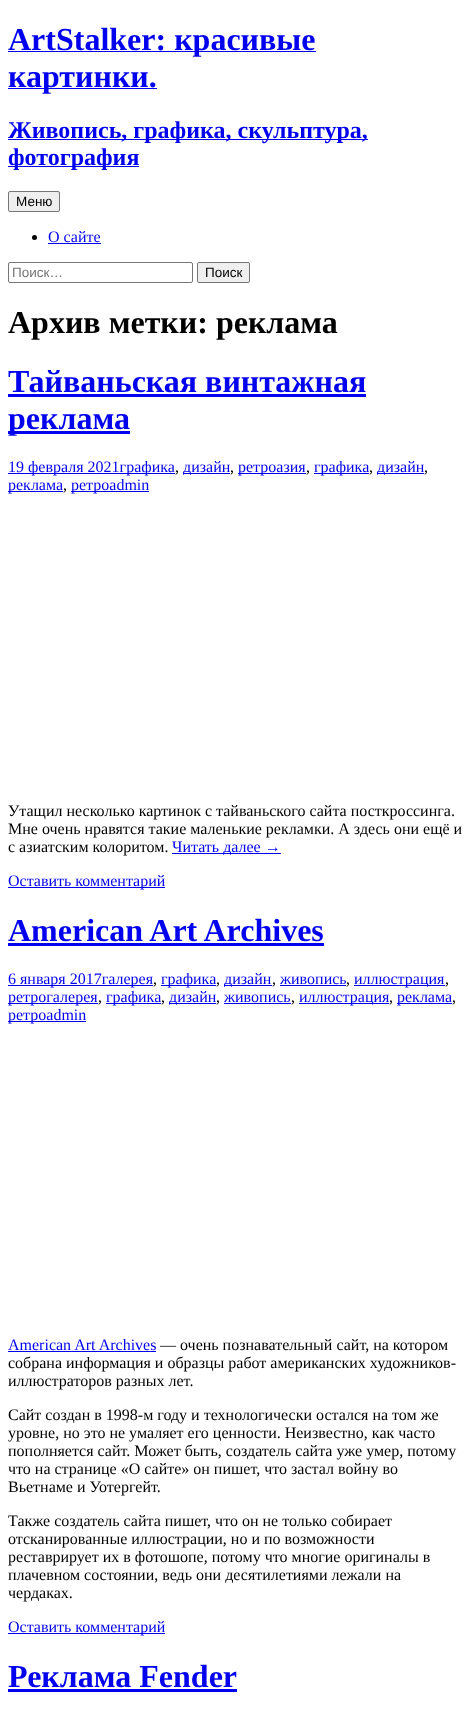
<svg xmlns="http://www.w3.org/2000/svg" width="472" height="1717">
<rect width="100%" height="100%" fill="#fff"/>
<rect x="8" y="51" width="308" height="1" fill="#00e"/>
<text x="8" y="50" style="font-family:Liberation Serif;font-size:32px;font-weight:bold;fill:#00e">ArtStalker: красивые</text>
<rect x="8" y="88" width="149" height="1" fill="#00e"/>
<text x="8" y="87" style="font-family:Liberation Serif;font-size:32px;font-weight:bold;fill:#00e">картинки.</text>
<rect x="8" y="139" width="360" height="1" fill="#00e"/>
<text x="8" y="138" style="font-family:Liberation Serif;font-size:24px;font-weight:bold;fill:#00e">Живопись, графика, скульптура,</text>
<rect x="8" y="166" width="131" height="1" fill="#00e"/>
<text x="8" y="165" style="font-family:Liberation Serif;font-size:24px;font-weight:bold;fill:#00e">фотография</text>
<rect x="8.5" y="191.5" width="51" height="20" rx="1.5" fill="#efefef" stroke="#767676"/>
<text x="16" y="206" style="font-family:Liberation Sans;font-size:13.5px;fill:#000">Меню</text>
<circle cx="34.5" cy="237.5" r="2.5" fill="#000"/>
<text x="48" y="242" style="font-family:Liberation Serif;font-size:16px;fill:#00e">О сайте</text>
<rect x="48" y="243" width="53" height="1" fill="#00e"/>
<rect x="8.5" y="262.5" width="184" height="20" rx="1.5" fill="none" stroke="#767676"/>
<text x="12" y="277" style="font-family:Liberation Sans;font-size:13.5px;fill:#757575">Поиск…</text>
<rect x="197.5" y="262.5" width="52" height="20" rx="1.5" fill="#efefef" stroke="#767676"/>
<text x="205" y="277" style="font-family:Liberation Sans;font-size:13.5px;fill:#000">Поиск</text>
<text x="8" y="333" style="font-family:Liberation Serif;font-size:32px;font-weight:bold;fill:#000">Архив метки: реклама</text>
<text x="8" y="392" style="font-family:Liberation Serif;font-size:32px;font-weight:bold;fill:#00e">Тайваньская винтажная</text>
<rect x="8" y="394" width="358" height="3" fill="#00e"/>
<rect x="8" y="431" width="122" height="3" fill="#00e"/>
<text x="8" y="429" style="font-family:Liberation Serif;font-size:32px;font-weight:bold;fill:#00e">реклама</text>
<rect x="8" y="473" width="167" height="1" fill="#00e"/>
<text x="8" y="472" style="font-family:Liberation Serif;font-size:16px;fill:#00e">19 февраля 2021графика</text>
<text x="175" y="472" style="font-family:Liberation Serif;font-size:16px;fill:#000">,</text>
<rect x="183" y="473" width="47" height="1" fill="#00e"/>
<text x="183" y="472" style="font-family:Liberation Serif;font-size:16px;fill:#00e">дизайн</text>
<text x="230" y="472" style="font-family:Liberation Serif;font-size:16px;fill:#000">,</text>
<rect x="238" y="473" width="68" height="1" fill="#00e"/>
<text x="238" y="472" style="font-family:Liberation Serif;font-size:16px;fill:#00e">ретроазия</text>
<text x="306" y="472" style="font-family:Liberation Serif;font-size:16px;fill:#000">,</text>
<rect x="314" y="473" width="55" height="1" fill="#00e"/>
<text x="314" y="472" style="font-family:Liberation Serif;font-size:16px;fill:#00e">графика</text>
<text x="369" y="472" style="font-family:Liberation Serif;font-size:16px;fill:#000">,</text>
<rect x="377" y="473" width="47" height="1" fill="#00e"/>
<text x="377" y="472" style="font-family:Liberation Serif;font-size:16px;fill:#00e">дизайн</text>
<text x="424" y="472" style="font-family:Liberation Serif;font-size:16px;fill:#000">,</text>
<rect x="8" y="491" width="55" height="1" fill="#00e"/>
<text x="8" y="490" style="font-family:Liberation Serif;font-size:16px;fill:#00e">реклама</text>
<text x="63" y="490" style="font-family:Liberation Serif;font-size:16px;fill:#000">,</text>
<rect x="71" y="491" width="78" height="1" fill="#00e"/>
<text x="71" y="490" style="font-family:Liberation Serif;font-size:16px;fill:#00e">ретроadmin</text>
<text x="8" y="816" style="font-family:Liberation Serif;font-size:16px;fill:#000">Утащил несколько картинок с тайваньского сайта посткроссинга.</text>
<text x="8" y="834" style="font-family:Liberation Serif;font-size:16px;fill:#000">Мне очень нравятся такие маленькие рекламки. А здесь они ещё и</text>
<text x="8" y="852" style="font-family:Liberation Serif;font-size:16px;fill:#000">с азиатским колоритом.</text>
<rect x="172" y="853" width="109" height="1" fill="#00e"/>
<text x="172" y="852" style="font-family:Liberation Serif;font-size:16px;fill:#00e">Читать далее →</text>
<rect x="8" y="887" width="157" height="1" fill="#00e"/>
<text x="8" y="886" style="font-family:Liberation Serif;font-size:16px;fill:#00e">Оставить комментарий</text>
<text x="8" y="941" style="font-family:Liberation Serif;font-size:32px;font-weight:bold;fill:#00e">American Art Archives</text>
<rect x="8" y="943" width="316" height="3" fill="#00e"/>
<rect x="8" y="985" width="145" height="1" fill="#00e"/>
<text x="8" y="984" style="font-family:Liberation Serif;font-size:16px;fill:#00e">6 января 2017галерея</text>
<text x="153" y="984" style="font-family:Liberation Serif;font-size:16px;fill:#000">,</text>
<rect x="161" y="985" width="55" height="1" fill="#00e"/>
<text x="161" y="984" style="font-family:Liberation Serif;font-size:16px;fill:#00e">графика</text>
<text x="216" y="984" style="font-family:Liberation Serif;font-size:16px;fill:#000">,</text>
<rect x="224" y="985" width="48" height="1" fill="#00e"/>
<text x="224" y="984" style="font-family:Liberation Serif;font-size:16px;fill:#00e">дизайн</text>
<text x="272" y="984" style="font-family:Liberation Serif;font-size:16px;fill:#000">,</text>
<text x="280" y="984" style="font-family:Liberation Serif;font-size:16px;fill:#00e">живопись</text>
<text x="346" y="984" style="font-family:Liberation Serif;font-size:16px;fill:#000">,</text>
<rect x="280" y="985" width="66" height="1" fill="#00e"/>
<rect x="354" y="985" width="91" height="1" fill="#00e"/>
<text x="354" y="984" style="font-family:Liberation Serif;font-size:16px;fill:#00e">иллюстрация</text>
<text x="445" y="984" style="font-family:Liberation Serif;font-size:16px;fill:#000">,</text>
<rect x="8" y="1003" width="90" height="1" fill="#00e"/>
<text x="8" y="1002" style="font-family:Liberation Serif;font-size:16px;fill:#00e">ретрогалерея</text>
<text x="98" y="1002" style="font-family:Liberation Serif;font-size:16px;fill:#000">,</text>
<rect x="106" y="1003" width="55" height="1" fill="#00e"/>
<text x="106" y="1002" style="font-family:Liberation Serif;font-size:16px;fill:#00e">графика</text>
<text x="161" y="1002" style="font-family:Liberation Serif;font-size:16px;fill:#000">,</text>
<rect x="169" y="1003" width="47" height="1" fill="#00e"/>
<text x="169" y="1002" style="font-family:Liberation Serif;font-size:16px;fill:#00e">дизайн</text>
<text x="216" y="1002" style="font-family:Liberation Serif;font-size:16px;fill:#000">,</text>
<text x="224" y="1002" style="font-family:Liberation Serif;font-size:16px;fill:#00e">живопись</text>
<text x="291" y="1002" style="font-family:Liberation Serif;font-size:16px;fill:#000">,</text>
<rect x="224" y="1003" width="67" height="1" fill="#00e"/>
<rect x="299" y="1003" width="90" height="1" fill="#00e"/>
<text x="299" y="1002" style="font-family:Liberation Serif;font-size:16px;fill:#00e">иллюстрация</text>
<text x="389" y="1002" style="font-family:Liberation Serif;font-size:16px;fill:#000">,</text>
<rect x="397" y="1003" width="55" height="1" fill="#00e"/>
<text x="397" y="1002" style="font-family:Liberation Serif;font-size:16px;fill:#00e">реклама</text>
<text x="452" y="1002" style="font-family:Liberation Serif;font-size:16px;fill:#000">,</text>
<rect x="8" y="1021" width="78" height="1" fill="#00e"/>
<text x="8" y="1020" style="font-family:Liberation Serif;font-size:16px;fill:#00e">ретроadmin</text>
<text x="8" y="1350" style="font-family:Liberation Serif;font-size:16px;fill:#00e">American Art Archives</text>
<rect x="8" y="1351" width="148" height="1" fill="#00e"/>
<text x="160" y="1350" style="font-family:Liberation Serif;font-size:16px;fill:#000">— очень познавательный сайт, на котором</text>
<text x="8" y="1368" style="font-family:Liberation Serif;font-size:16px;fill:#000">собрана информация и образцы работ американских художников-</text>
<text x="8" y="1386" style="font-family:Liberation Serif;font-size:16px;fill:#000">иллюстраторов разных лет.</text>
<text x="8" y="1420" style="font-family:Liberation Serif;font-size:16px;fill:#000">Сайт создан в 1998-м году и технологически остался на том же</text>
<text x="8" y="1438" style="font-family:Liberation Serif;font-size:16px;fill:#000">уровне, но это не умаляет его ценности. Неизвестно, как часто</text>
<text x="8" y="1456" style="font-family:Liberation Serif;font-size:16px;fill:#000">пополняется сайт. Может быть, создатель сайта уже умер, потому</text>
<text x="8" y="1474" style="font-family:Liberation Serif;font-size:16px;fill:#000">что на странице «О сайте» он пишет, что застал войну во</text>
<text x="8" y="1492" style="font-family:Liberation Serif;font-size:16px;fill:#000">Вьетнаме и Уотергейт.</text>
<text x="8" y="1526" style="font-family:Liberation Serif;font-size:16px;fill:#000">Также создатель сайта пишет, что он не только собирает</text>
<text x="8" y="1544" style="font-family:Liberation Serif;font-size:16px;fill:#000">отсканированные иллюстрации, но и по возможности</text>
<text x="8" y="1562" style="font-family:Liberation Serif;font-size:16px;fill:#000">реставрирует их в фотошопе, потому что многие оригиналы в</text>
<text x="8" y="1580" style="font-family:Liberation Serif;font-size:16px;fill:#000">плачевном состоянии, ведь они десятилетиями лежали на</text>
<text x="8" y="1598" style="font-family:Liberation Serif;font-size:16px;fill:#000">чердаках.</text>
<rect x="8" y="1633" width="157" height="1" fill="#00e"/>
<text x="8" y="1632" style="font-family:Liberation Serif;font-size:16px;fill:#00e">Оставить комментарий</text>
<text x="8" y="1687" style="font-family:Liberation Serif;font-size:32px;font-weight:bold;fill:#00e">Реклама Fender</text>
<rect x="8" y="1689" width="229" height="3" fill="#00e"/>
</svg>
